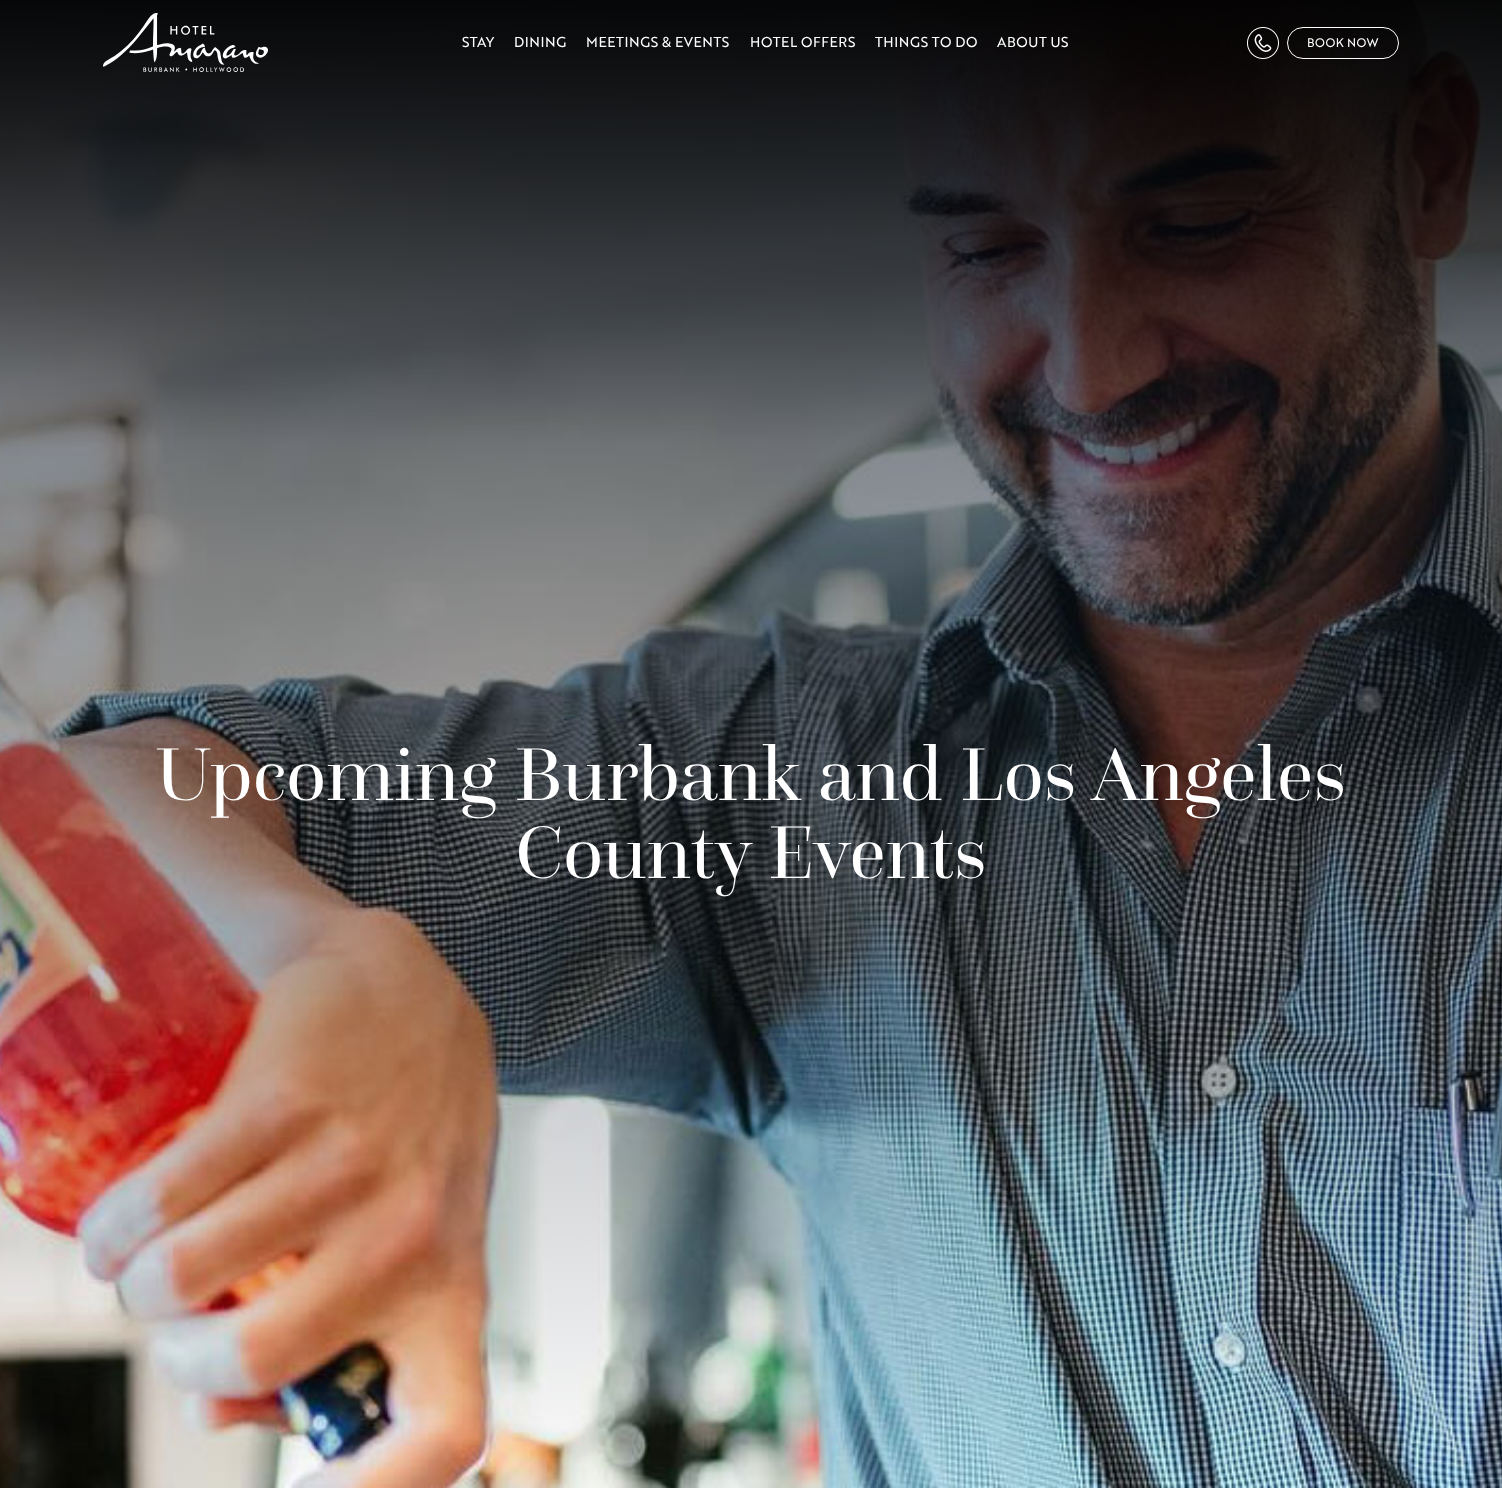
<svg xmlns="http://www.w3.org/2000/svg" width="1502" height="1488">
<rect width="100%" height="100%" fill="#fff"/>
<image x="0" y="0" width="1502" height="1488" href="media/3.png"/>
<image x="103" y="13" width="165" height="59" href="media/1.png"/>
<text x="462" y="47" style="font-family:'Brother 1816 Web';font-size:14px;fill:#fff">STAY</text>
<text x="514" y="47" style="font-family:'Brother 1816 Web';font-size:14px;fill:#fff">DINING</text>
<text x="586" y="47" style="font-family:'Brother 1816 Web';font-size:14px;fill:#fff">MEETINGS &amp; EVENTS</text>
<text x="750" y="47" style="font-family:'Brother 1816 Web';font-size:14px;fill:#fff">HOTEL OFFERS</text>
<text x="875" y="47" style="font-family:'Brother 1816 Web';font-size:14px;fill:#fff">THINGS TO DO</text>
<text x="997" y="47" style="font-family:'Brother 1816 Web';font-size:14px;fill:#fff">ABOUT US</text>
<image x="1247" y="27" width="32" height="32" href="media/2.png"/>
<rect x="1287.5" y="27.5" width="111" height="31" rx="15.5" fill="none" stroke="#fff"/>
<text x="1307" y="47" style="font-family:'Brother 1816 Web';font-size:12px;fill:#fff">BOOK NOW</text>
<text x="155" y="800" style="font-family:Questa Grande;font-size:78px;fill:#fff">Upcoming Burbank and Los Angeles</text>
<text x="515" y="878" style="font-family:Questa Grande;font-size:78px;fill:#fff">County Events</text>
</svg>
